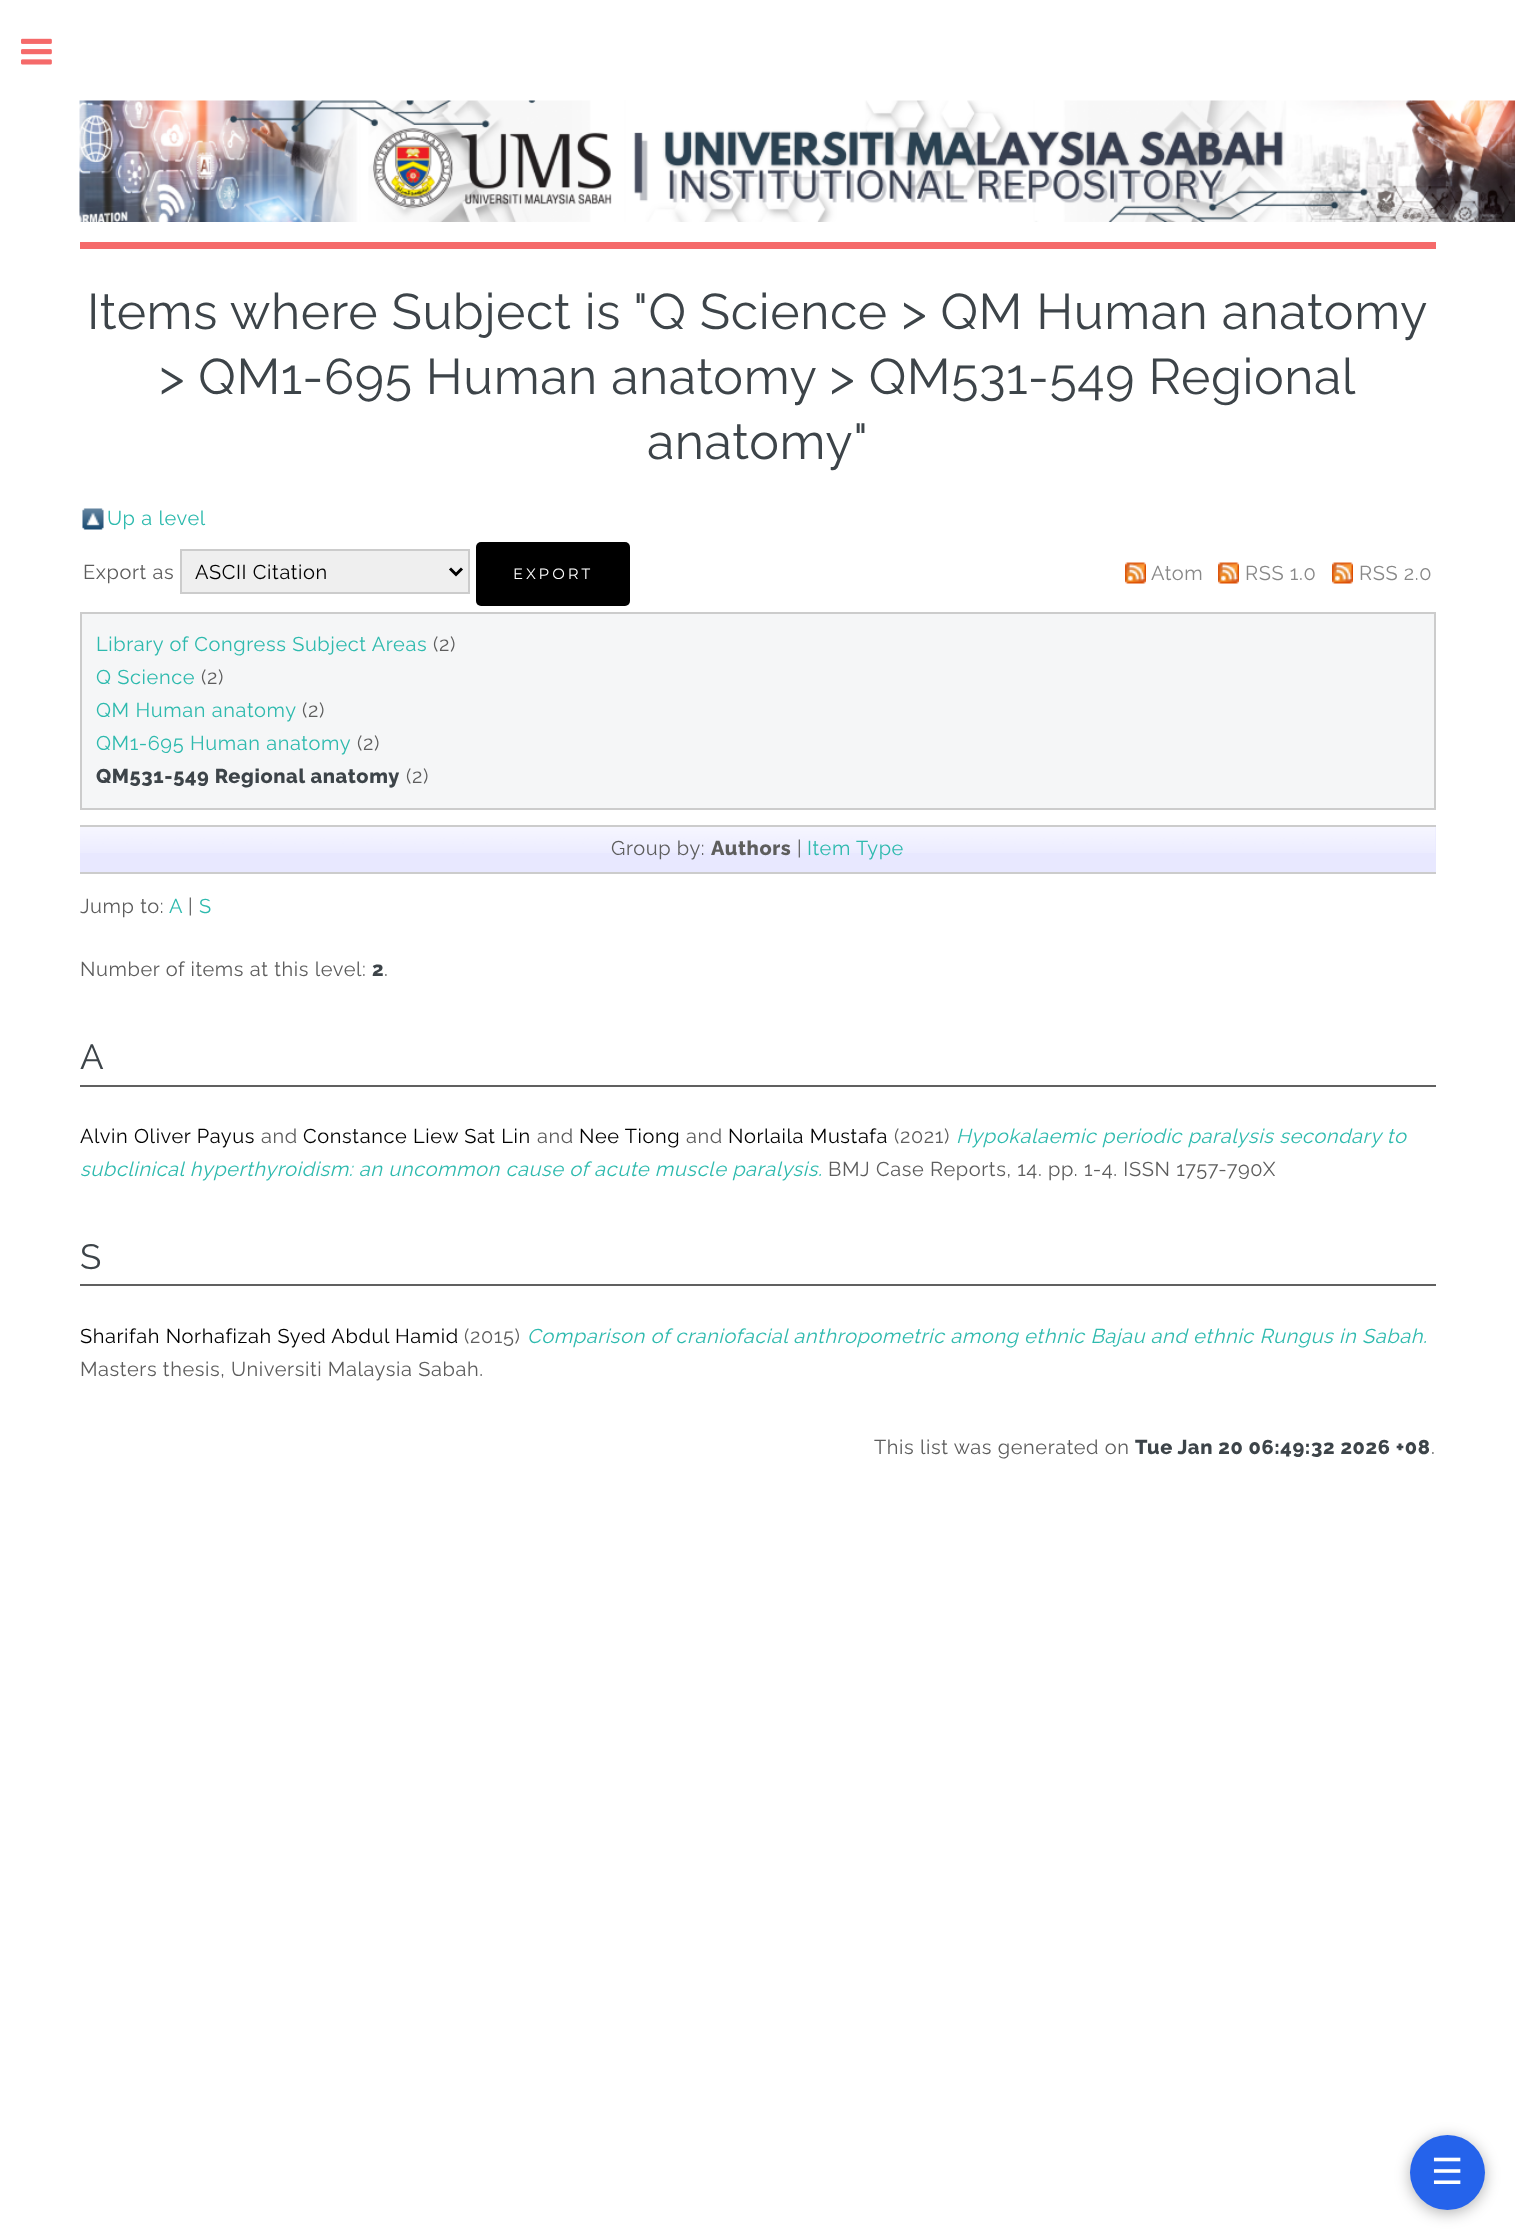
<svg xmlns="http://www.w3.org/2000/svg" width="1515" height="2239">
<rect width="100%" height="100%" fill="#fff"/>
<image x="21" y="38" width="31" height="27" href="media/1.png"/>
<rect x="80" y="242" width="1356" height="7" fill="#f56a6a"/>
<image x="79" y="100" width="1436" height="122" href="media/2.png"/>
<text x="87" y="329" style="font-family:Raleway;font-size:50px;letter-spacing:0.6px;fill:#3d4449">Items where Subject is "Q Science &gt; QM Human anatomy</text>
<text x="159" y="394" style="font-family:Raleway;font-size:50px;letter-spacing:0.6px;fill:#3d4449">&gt; QM1-695 Human anatomy &gt; QM531-549 Regional</text>
<text x="647" y="459" style="font-family:Raleway;font-size:50px;letter-spacing:0.6px;fill:#3d4449">anatomy"</text>
<image x="82" y="508" width="22" height="22" href="media/3.png"/>
<text x="107" y="525" style="font-family:Raleway;font-size:20px;letter-spacing:0.6px;fill:#2ebaae">Up a level</text>
<text x="83" y="579" style="font-family:Raleway;font-size:20px;letter-spacing:0.6px;fill:#5d5d5d">Export as</text>
<rect x="181" y="550" width="288" height="43" fill="#efefef" stroke="#ccc" stroke-width="2"/>
<path d="M450 568.5l6 6l6-6" fill="none" stroke="#000" stroke-width="3"/>
<text x="195" y="579" style="font-family:Raleway;font-size:20px;letter-spacing:0.6px;fill:#000">ASCII Citation</text>
<rect x="476" y="542" width="154" height="64" rx="5" fill="#000"/>
<text x="513" y="579" style="font-family:Montserrat;font-size:15px;letter-spacing:3px;fill:#fff">EXPORT</text>
<image x="1125" y="562" width="21" height="22" href="media/4.png"/>
<text x="1151" y="580" style="font-family:Raleway;font-size:20px;letter-spacing:0.6px;fill:#888">Atom</text>
<image x="1218" y="562" width="21" height="22" href="media/4.png"/>
<text x="1245" y="580" style="font-family:Raleway;font-size:20px;letter-spacing:0.6px;fill:#888">RSS 1.0</text>
<image x="1332" y="562" width="21" height="22" href="media/4.png"/>
<text x="1359" y="580" style="font-family:Raleway;font-size:20px;letter-spacing:0.6px;fill:#888">RSS 2.0</text>
<rect x="81" y="613" width="1354" height="196" fill="#f5f6f7" stroke="#ccc" stroke-width="2"/>
<text x="96" y="651" style="font-family:Raleway;font-size:20px;letter-spacing:0.6px;fill:#2ebaae">Library of Congress Subject Areas</text>
<text x="433" y="651" style="font-family:Raleway;font-size:20px;letter-spacing:0.6px;fill:#5d5d5d">(2)</text>
<text x="96" y="684" style="font-family:Raleway;font-size:20px;letter-spacing:0.6px;fill:#2ebaae">Q Science</text>
<text x="201" y="684" style="font-family:Raleway;font-size:20px;letter-spacing:0.6px;fill:#5d5d5d">(2)</text>
<text x="96" y="717" style="font-family:Raleway;font-size:20px;letter-spacing:0.6px;fill:#2ebaae">QM Human anatomy</text>
<text x="302" y="717" style="font-family:Raleway;font-size:20px;letter-spacing:0.6px;fill:#5d5d5d">(2)</text>
<text x="96" y="750" style="font-family:Raleway;font-size:20px;letter-spacing:0.6px;fill:#2ebaae">QM1-695 Human anatomy</text>
<text x="357" y="750" style="font-family:Raleway;font-size:20px;letter-spacing:0.6px;fill:#5d5d5d">(2)</text>
<text x="96" y="783" style="font-family:Raleway;font-size:20px;font-weight:800;letter-spacing:0.6px;fill:#3d4449">QM531-549 Regional anatomy</text>
<text x="406" y="783" style="font-family:Raleway;font-size:20px;letter-spacing:0.6px;fill:#5d5d5d">(2)</text>
<rect x="80" y="827" width="1356" height="45" fill="#e8e8ff"/>
<image x="80" y="827" width="1356" height="26" href="media/5.png"/>
<rect x="80" y="825" width="1356" height="2" fill="#ccc"/>
<rect x="80" y="872" width="1356" height="2" fill="#ccc"/>
<text x="611" y="855" style="font-family:Raleway;font-size:20px;letter-spacing:0.6px;fill:#5d5d5d">Group by:</text>
<text x="711" y="855" style="font-family:Raleway;font-size:20px;font-weight:800;letter-spacing:0.6px;fill:#5d5d5d">Authors</text>
<text x="797" y="855" style="font-family:Raleway;font-size:20px;letter-spacing:0.6px;fill:#5d5d5d">|</text>
<text x="807" y="855" style="font-family:Raleway;font-size:20px;letter-spacing:0.6px;fill:#2ebaae">Item Type</text>
<text x="80" y="913" style="font-family:Raleway;font-size:20px;letter-spacing:0.6px;fill:#5d5d5d">Jump to:</text>
<text x="169" y="913" style="font-family:Raleway;font-size:20px;letter-spacing:0.6px;fill:#2ebaae">A</text>
<text x="188" y="913" style="font-family:Raleway;font-size:20px;letter-spacing:0.6px;fill:#5d5d5d">|</text>
<text x="199" y="913" style="font-family:Raleway;font-size:20px;letter-spacing:0.6px;fill:#2ebaae">S</text>
<text x="80" y="976" style="font-family:Raleway;font-size:20px;letter-spacing:0.6px;fill:#5d5d5d">Number of items at this level:</text>
<text x="372" y="976" style="font-family:Raleway;font-size:20px;font-weight:800;letter-spacing:0.6px;fill:#3d4449">2</text>
<text x="384" y="976" style="font-family:Raleway;font-size:20px;letter-spacing:0.6px;fill:#5d5d5d">.</text>
<rect x="80" y="1085" width="1356" height="2" fill="#606060"/>
<text x="80" y="1069" style="font-family:Raleway;font-size:35px;letter-spacing:0.6px;fill:#3d4449">A</text>
<text x="80" y="1143" style="font-family:Raleway;font-size:20px;letter-spacing:0.6px;fill:#000">Alvin Oliver Payus</text>
<text x="261" y="1143" style="font-family:Raleway;font-size:20px;letter-spacing:0.6px;fill:#5d5d5d">and</text>
<text x="303" y="1143" style="font-family:Raleway;font-size:20px;letter-spacing:0.6px;fill:#000">Constance Liew Sat Lin</text>
<text x="537" y="1143" style="font-family:Raleway;font-size:20px;letter-spacing:0.6px;fill:#5d5d5d">and</text>
<text x="579" y="1143" style="font-family:Raleway;font-size:20px;letter-spacing:0.6px;fill:#000">Nee Tiong</text>
<text x="686" y="1143" style="font-family:Raleway;font-size:20px;letter-spacing:0.6px;fill:#5d5d5d">and</text>
<text x="728" y="1143" style="font-family:Raleway;font-size:20px;letter-spacing:0.6px;fill:#000">Norlaila Mustafa</text>
<text x="894" y="1143" style="font-family:Raleway;font-size:20px;letter-spacing:0.6px;fill:#5d5d5d">(2021)</text>
<text x="956" y="1143" style="font-family:Raleway;font-size:20px;font-style:italic;letter-spacing:0.6px;fill:#2ebaae">Hypokalaemic periodic paralysis secondary to</text>
<text x="80" y="1176" style="font-family:Raleway;font-size:20px;font-style:italic;letter-spacing:0.6px;fill:#2ebaae">subclinical hyperthyroidism: an uncommon cause of acute muscle paralysis.</text>
<text x="828" y="1176" style="font-family:Raleway;font-size:20px;letter-spacing:0.6px;fill:#5d5d5d">BMJ Case Reports, 14. pp. 1-4. ISSN 1757-790X</text>
<rect x="80" y="1284" width="1356" height="2" fill="#606060"/>
<text x="80" y="1269" style="font-family:Raleway;font-size:35px;letter-spacing:0.6px;fill:#3d4449">S</text>
<text x="80" y="1343" style="font-family:Raleway;font-size:20px;letter-spacing:0.6px;fill:#000">Sharifah Norhafizah Syed Abdul Hamid</text>
<text x="464" y="1343" style="font-family:Raleway;font-size:20px;letter-spacing:0.6px;fill:#5d5d5d">(2015)</text>
<text x="527" y="1343" style="font-family:Raleway;font-size:20px;font-style:italic;letter-spacing:0.6px;fill:#2ebaae">Comparison of craniofacial anthropometric among ethnic Bajau and ethnic Rungus in Sabah.</text>
<text x="80" y="1376" style="font-family:Raleway;font-size:20px;letter-spacing:0.6px;fill:#5d5d5d">Masters thesis, Universiti Malaysia Sabah.</text>
<text x="874" y="1454" style="font-family:Raleway;font-size:20px;letter-spacing:0.6px;fill:#5d5d5d">This list was generated on</text>
<text x="1135" y="1454" style="font-family:Raleway;font-size:20px;font-weight:800;letter-spacing:0.6px;fill:#3d4449">Tue Jan 20 06:49:32 2026 +08</text>
<text x="1431" y="1454" style="font-family:Raleway;font-size:20px;letter-spacing:0.6px;fill:#5d5d5d">.</text>
<rect x="1410" y="2138" width="75" height="75" rx="37.5" fill="#0000004d" filter="blur(7.5px)"/>
<circle cx="1447.5" cy="2172.5" r="37.5" fill="#2563eb"/>
<text x="1431" y="2184" style="font-family:DejaVu Sans;font-size:36px;fill:#fff">☰</text>
</svg>
